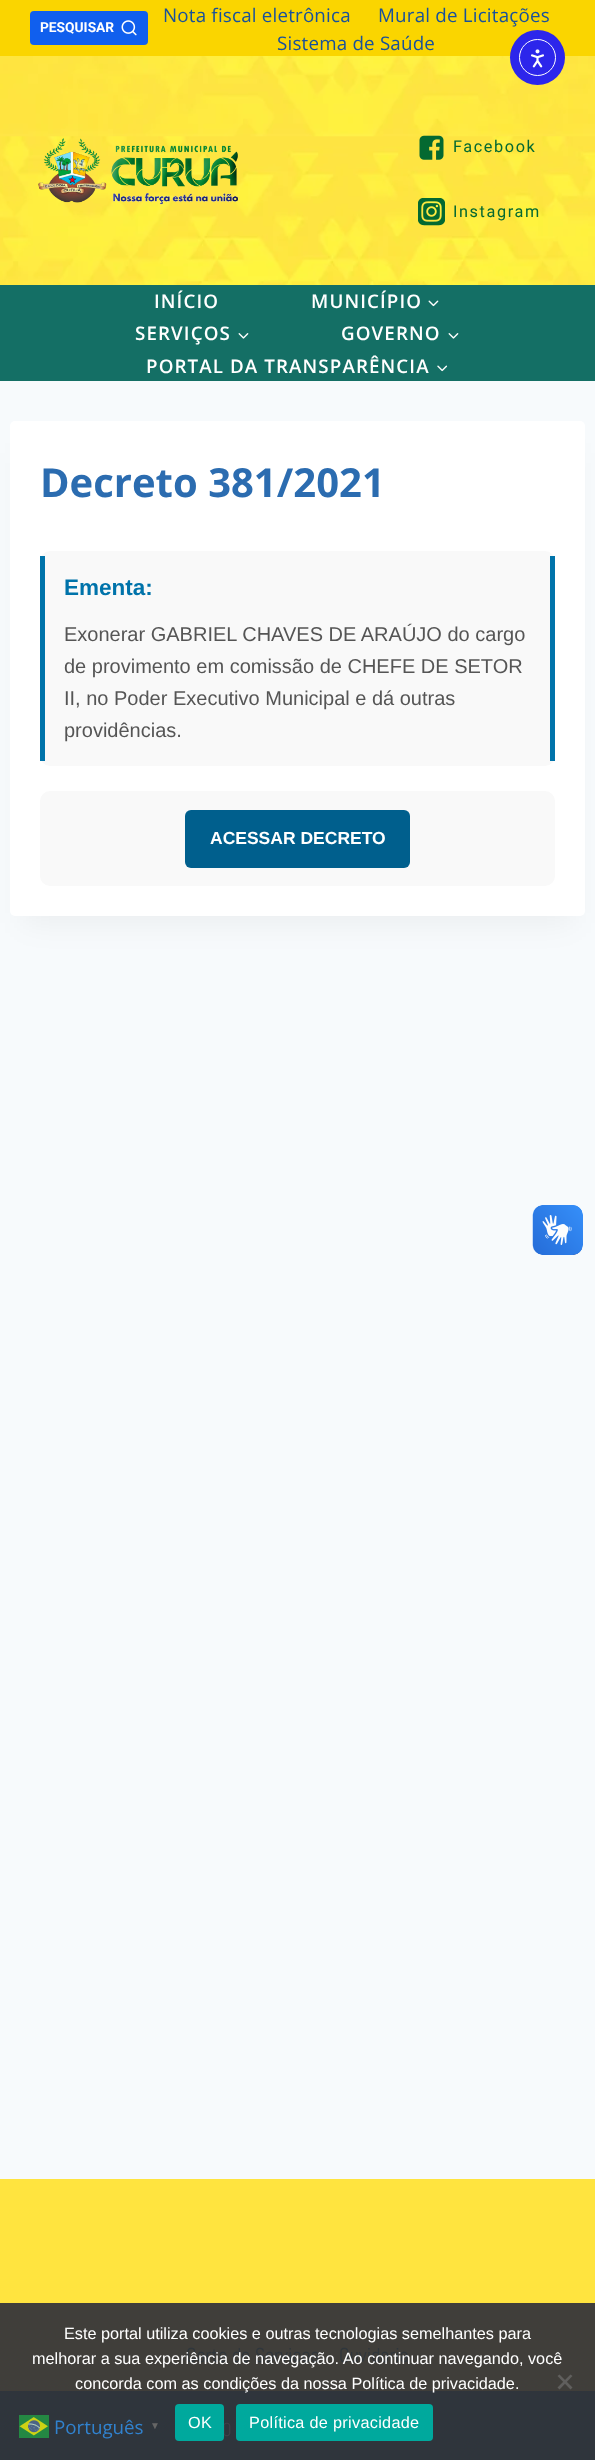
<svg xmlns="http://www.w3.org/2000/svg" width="595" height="2460">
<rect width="100%" height="100%" fill="#f7fafc"/>
<rect width="595" height="56" fill="#fad500"/>
<rect x="30" y="11" width="118" height="34" rx="4" fill="#105fee"/>
<text x="40" y="32" style="font-family:Roboto;font-size:13.75px;font-weight:bold;fill:#fff">PESQUISAR</text>
<image x="121" y="20" width="16" height="16" href="media/1.png"/>
<text x="163" y="22" style="font-family:Open Sans;font-size:18.75px;letter-spacing:0.2px;fill:#18519b">Nota fiscal eletrônica</text>
<text x="378" y="22" style="font-family:Open Sans;font-size:18.75px;letter-spacing:0.2px;fill:#18519b">Mural de Licitações</text>
<text x="277" y="50" style="font-family:Open Sans;font-size:18.75px;letter-spacing:0.2px;fill:#18519b">Sistema de Saúde</text>
<image x="0" y="56" width="595" height="229" href="media/2.png"/>
<image x="38" y="138" width="201" height="67" href="media/3.png"/>
<image x="419" y="135" width="25" height="25" href="media/4.png"/>
<text x="453" y="152" style="font-family:Roboto;font-size:16.25px;letter-spacing:1.6px;fill:#046931">Facebook</text>
<image x="418" y="198" width="27" height="28" href="media/5.png"/>
<text x="453" y="217" style="font-family:Roboto;font-size:16.25px;letter-spacing:1.6px;fill:#046931">Instagram</text>
<rect y="285" width="595" height="96" fill="#146f65"/>
<text x="154" y="308" style="font-family:Open Sans;font-size:18.75px;font-weight:600;letter-spacing:1.1px;fill:#fff">INÍCIO</text>
<text x="311" y="308" style="font-family:Open Sans;font-size:18.75px;font-weight:600;letter-spacing:1.1px;fill:#fff">MUNICÍPIO</text>
<image x="428" y="300" width="11" height="7" href="media/6.png"/>
<text x="135" y="340" style="font-family:Open Sans;font-size:18.75px;font-weight:600;letter-spacing:1.1px;fill:#fff">SERVIÇOS</text>
<image x="238" y="333" width="11" height="6" href="media/7.png"/>
<text x="341" y="340" style="font-family:Open Sans;font-size:18.75px;font-weight:600;letter-spacing:1.1px;fill:#fff">GOVERNO</text>
<image x="448" y="333" width="11" height="6" href="media/7.png"/>
<text x="146" y="373" style="font-family:Open Sans;font-size:18.75px;font-weight:600;letter-spacing:1.1px;fill:#fff">PORTAL DA TRANSPARÊNCIA</text>
<image x="437" y="365" width="11" height="7" href="media/8.png"/>
<rect x="23" y="453" width="550" height="470" fill="#0000000d" filter="blur(15.5px)"/>
<rect x="10" y="421" width="575" height="495" rx="5" fill="#fff"/>
<text x="40" y="497" style="font-family:Open Sans;font-size:40px;font-weight:bold;fill:#2b6cb0">Decreto 381/2021</text>
<rect x="40" y="551" width="515" height="215" rx="10" fill="#f9f9f9"/>
<rect x="550" y="556" width="5" height="205" fill="#0073aa"/>
<rect x="40" y="556" width="5" height="205" fill="#0073aa"/>
<text x="64" y="595" style="font-family:Liberation Sans;font-size:22.5px;font-weight:bold;fill:#0073aa">Ementa:</text>
<text x="64" y="641" style="font-family:Liberation Sans;font-size:20px;fill:#555">Exonerar GABRIEL CHAVES DE ARAÚJO do cargo</text>
<text x="64" y="673" style="font-family:Liberation Sans;font-size:20px;fill:#555">de provimento em comissão de CHEFE DE SETOR</text>
<text x="64" y="705" style="font-family:Liberation Sans;font-size:20px;fill:#555">II, no Poder Executivo Municipal e dá outras</text>
<text x="64" y="737" style="font-family:Liberation Sans;font-size:20px;fill:#555">providências.</text>
<rect x="40" y="791" width="515" height="95" rx="10" fill="#f9f9f9"/>
<rect x="185" y="810" width="225" height="58" rx="6" fill="#005f8d"/>
<text x="210" y="844" style="font-family:Liberation Sans;font-size:17.5px;font-weight:bold;fill:#fff">ACESSAR DECRETO</text>
<rect y="2179" width="595" height="124" fill="#ffe43f"/>
<rect y="2303" width="595" height="88" fill="#403e3a"/>
<text x="186" y="2362" style="font-family:Abel;font-size:20px;fill:#2f363c">Carta de Serviços</text>
<text x="339" y="2362" style="font-family:Abel;font-size:20px;fill:#2f363c">Ouvidoria</text>
<rect y="2391" width="595" height="69" fill="#2f353c"/>
<text x="222" y="2436" style="font-family:Abel;font-size:18.75px;fill:#404048">0</text>
<circle cx="537.5" cy="57.5" r="27.5" fill="#2c26eb"/>
<circle cx="537.5" cy="57.5" r="18" fill="none" stroke="#fff"/>
<image x="530" y="49" width="14" height="19" href="media/9.png"/>
<image x="532" y="1205" width="51" height="50" href="media/10.png"/>
<image x="533" y="1205" width="50" height="50" href="media/11.png"/>
<text x="64" y="2339" style="font-family:Liberation Sans;font-size:16.25px;fill:#fff">Este portal utiliza cookies e outras tecnologias semelhantes para</text>
<text x="32" y="2364" style="font-family:Liberation Sans;font-size:16.25px;fill:#fff">melhorar a sua experiência de navegação. Ao continuar navegando, você</text>
<text x="75" y="2389" style="font-family:Liberation Sans;font-size:16.25px;fill:#fff">concorda com as condições da nossa Política de privacidade.</text>
<path d="M570.5 2374.5l2 1.5l-13 13.5l-2-2z" fill="#605f5d"/>
<path d="M557.5 2376l2-1.5l13 13l-2 2z" fill="#605f5d"/>
<rect x="175" y="2404" width="49" height="37" rx="4" fill="#00a99d"/>
<text x="188" y="2428" style="font-family:Liberation Sans;font-size:16.25px;letter-spacing:0.3px;fill:#fff">OK</text>
<rect x="236" y="2404" width="197" height="37" rx="4" fill="#00a99d"/>
<text x="249" y="2428" style="font-family:Liberation Sans;font-size:16.25px;letter-spacing:0.3px;fill:#fff">Política de privacidade</text>
<image x="19" y="2415" width="30" height="23" href="media/12.png"/>
<text x="54" y="2434" style="font-family:Open Sans;font-size:18.75px;fill:#3182ce">Português</text>
<text x="150" y="2429" style="font-family:Liberation Sans;font-size:10px;font-weight:bold;fill:#666">▼</text>
</svg>
